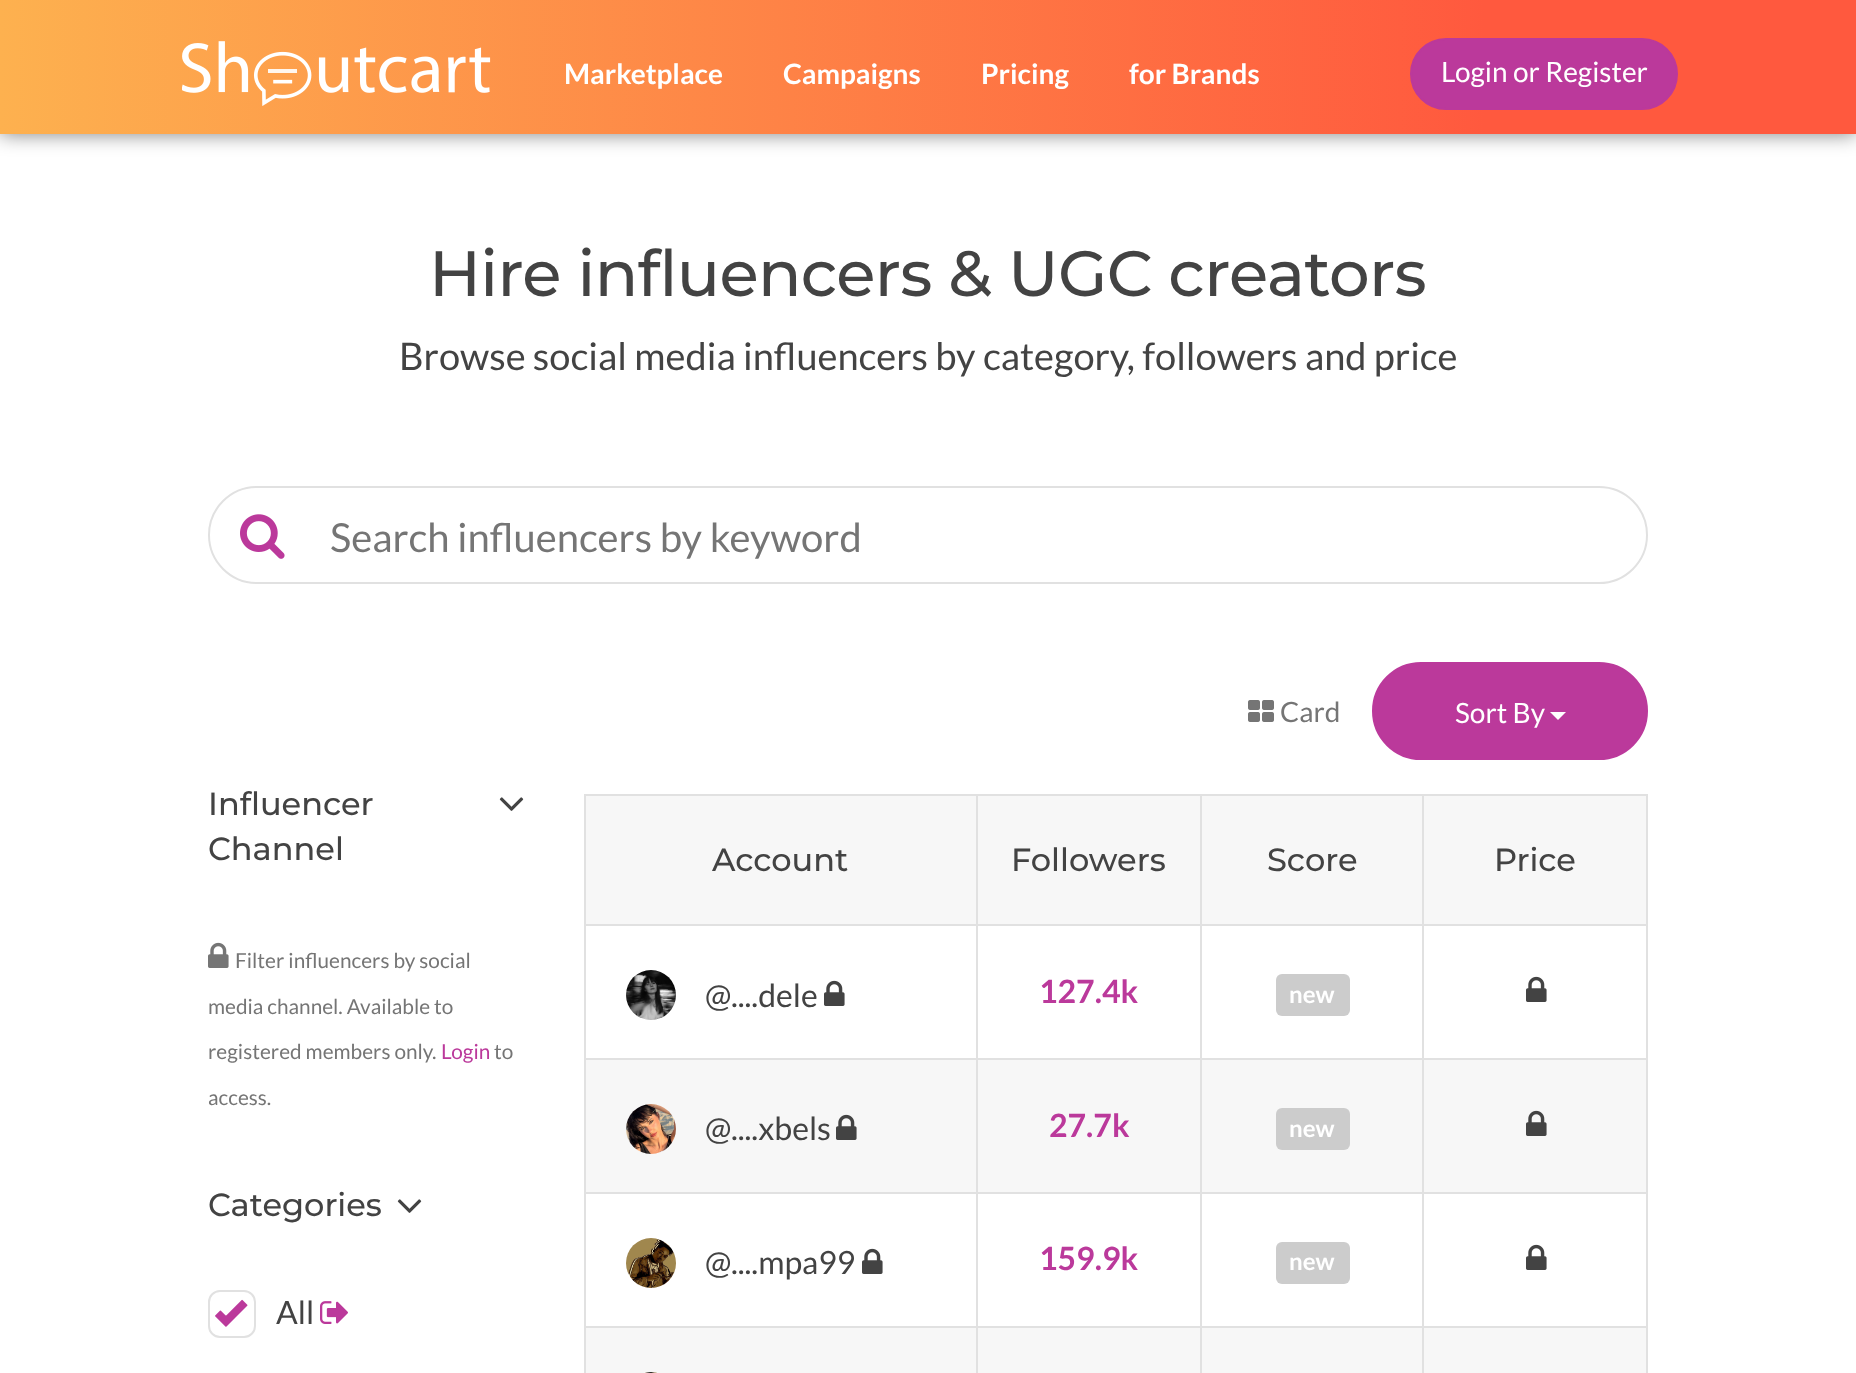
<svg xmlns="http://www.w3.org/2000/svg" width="1856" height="1373">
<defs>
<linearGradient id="g1" gradientUnits="userSpaceOnUse" x1="0" y1="67" x2="1856" y2="67"><stop offset="0" stop-color="#fdb14f"/><stop offset="0.8" stop-color="#ff593e"/></linearGradient>
</defs>
<rect width="100%" height="100%" fill="#fff"/>
<rect width="1856" height="134" fill="#00000080" filter="blur(10px)"/>
<rect width="1856" height="134" fill="url(#g1)"/>
<image x="182" y="41" width="309" height="65" href="media/1.png"/>
<text x="564" y="84" style="font-family:Lato;font-size:28px;font-weight:bold;fill:#fff">Marketplace</text>
<text x="783" y="84" style="font-family:Lato;font-size:28px;font-weight:bold;fill:#fff">Campaigns</text>
<text x="981" y="84" style="font-family:Lato;font-size:28px;font-weight:bold;fill:#fff">Pricing</text>
<text x="1129" y="84" style="font-family:Lato;font-size:28px;font-weight:bold;fill:#fff">for Brands</text>
<rect x="1411" y="39" width="266" height="70" rx="35" fill="#bb399b" stroke="#bb399b" stroke-width="2"/>
<text x="1441" y="82" style="font-family:Lato;font-size:28px;fill:#fff">Login or Register</text>
<text x="429" y="296" style="font-family:Montserrat;font-size:64px;font-weight:500;letter-spacing:-0.65px;fill:#434343">Hire influencers &amp; UGC creators</text>
<text x="399" y="370" style="font-family:Lato;font-size:38px;fill:#434343">Browse social media influencers by category, followers and price</text>
<rect x="209" y="487" width="1438" height="96" rx="48" fill="none" stroke="#e1e1e1" stroke-width="2"/>
<image x="240" y="514" width="45" height="45" href="media/2.png"/>
<text x="330" y="552" style="font-family:Lato;font-size:40px;fill:#757575">Search influencers by keyword</text>
<text x="208" y="815" style="font-family:Montserrat;font-size:32px;font-weight:500;fill:#434343">Influencer</text>
<image x="499" y="797" width="25" height="14" href="media/3.png"/>
<text x="208" y="860" style="font-family:Montserrat;font-size:32px;font-weight:500;fill:#434343">Channel</text>
<image x="208" y="942" width="21" height="26" href="media/4.png"/>
<text x="235" y="968" style="font-family:Lato;font-size:20.75px;fill:#757575">Filter influencers by social</text>
<text x="208" y="1014" style="font-family:Lato;font-size:20.75px;fill:#757575">media channel. Available to</text>
<text x="208" y="1059" style="font-family:Lato;font-size:20.75px;fill:#757575">registered members only.</text>
<text x="441" y="1059" style="font-family:Lato;font-size:20.75px;fill:#bb399b">Login</text>
<text x="494" y="1059" style="font-family:Lato;font-size:20.75px;fill:#757575">to</text>
<text x="208" y="1105" style="font-family:Lato;font-size:20.75px;fill:#757575">access.</text>
<text x="208" y="1216" style="font-family:Montserrat;font-size:32px;font-weight:500;fill:#434343">Categories</text>
<image x="397" y="1199" width="25" height="14" href="media/3.png"/>
<rect x="209" y="1291" width="46" height="46" rx="11" fill="none" stroke="#e1e1e1" stroke-width="2"/>
<image x="215" y="1299" width="33" height="28" href="media/5.png"/>
<text x="276" y="1324" style="font-family:Lato;font-size:32px;fill:#434343">All</text>
<image x="320" y="1301" width="28" height="23" href="media/6.png"/>
<image x="1248" y="700" width="26" height="22" href="media/7.png"/>
<text x="1280" y="722" style="font-family:Lato;font-size:28px;fill:#757575">Card</text>
<rect x="1373" y="663" width="274" height="96" rx="48" fill="#bb399b" stroke="#bb399b" stroke-width="2"/>
<text x="1455" y="723" style="font-family:Lato;font-size:28px;fill:#fff">Sort By</text>
<path d="M1550 712h16l-8 8z" fill="#fff"/>
<rect x="584" y="794" width="1064" height="2" fill="#e1e1e1"/>
<rect x="1646" y="794" width="2" height="579" fill="#e1e1e1"/>
<rect x="584" y="794" width="2" height="579" fill="#e1e1e1"/>
<rect x="584" y="924" width="1064" height="2" fill="#e1e1e1"/>
<rect x="586" y="796" width="390" height="128" fill="#f7f7f7"/>
<text x="712" y="871" style="font-family:Montserrat;font-size:32px;font-weight:500;fill:#434343">Account</text>
<rect x="978" y="796" width="222" height="128" fill="#f7f7f7"/>
<text x="1011" y="871" style="font-family:Montserrat;font-size:32px;font-weight:500;fill:#434343">Followers</text>
<rect x="1202" y="796" width="220" height="128" fill="#f7f7f7"/>
<text x="1267" y="871" style="font-family:Montserrat;font-size:32px;font-weight:500;fill:#434343">Score</text>
<rect x="1424" y="796" width="222" height="128" fill="#f7f7f7"/>
<text x="1494" y="871" style="font-family:Montserrat;font-size:32px;font-weight:500;fill:#434343">Price</text>
<rect x="586" y="1328" width="1060" height="45" fill="#f7f7f7"/>
<rect x="584" y="1058" width="1064" height="2" fill="#e1e1e1"/>
<rect x="586" y="1060" width="1060" height="132" fill="#f7f7f7"/>
<rect x="584" y="1192" width="1064" height="2" fill="#e1e1e1"/>
<rect x="584" y="1326" width="1064" height="2" fill="#e1e1e1"/>
<rect x="976" y="794" width="2" height="579" fill="#e1e1e1"/>
<image x="645" y="1372" width="12" height="1" href="media/8.png"/>
<rect x="1200" y="794" width="2" height="579" fill="#e1e1e1"/>
<rect x="1422" y="794" width="2" height="579" fill="#e1e1e1"/>
<image x="626" y="970" width="50" height="50" href="media/9.png"/>
<text x="705" y="1007" style="font-family:Lato;font-size:32px;fill:#434343">@</text>
<text x="731" y="1007" style="font-family:Lato;font-size:32px;fill:#434343">....dele</text>
<image x="824" y="980" width="21" height="26" href="media/10.png"/>
<text x="1039" y="1003" style="font-family:Lato;font-size:32px;font-weight:bold;fill:#bb399b">127.4k</text>
<rect x="1276" y="974" width="74" height="42" rx="6" fill="#ccc"/>
<text x="1289" y="1003" style="font-family:Lato;font-size:24px;font-weight:bold;fill:#fff">new</text>
<image x="1526" y="976" width="21" height="26" href="media/10.png"/>
<image x="626" y="1104" width="50" height="50" href="media/11.png"/>
<text x="705" y="1140" style="font-family:Lato;font-size:32px;fill:#434343">@</text>
<text x="731" y="1140" style="font-family:Lato;font-size:32px;fill:#434343">....xbels</text>
<image x="836" y="1114" width="21" height="26" href="media/12.png"/>
<text x="1049" y="1137" style="font-family:Lato;font-size:32px;font-weight:bold;fill:#bb399b">27.7k</text>
<rect x="1276" y="1108" width="74" height="42" rx="6" fill="#ccc"/>
<text x="1289" y="1137" style="font-family:Lato;font-size:24px;font-weight:bold;fill:#fff">new</text>
<image x="1526" y="1110" width="21" height="26" href="media/12.png"/>
<image x="626" y="1238" width="50" height="50" href="media/13.png"/>
<text x="705" y="1274" style="font-family:Lato;font-size:32px;fill:#434343">@</text>
<text x="731" y="1274" style="font-family:Lato;font-size:32px;fill:#434343">....mpa99</text>
<image x="862" y="1248" width="21" height="26" href="media/10.png"/>
<text x="1039" y="1270" style="font-family:Lato;font-size:32px;font-weight:bold;fill:#bb399b">159.9k</text>
<rect x="1276" y="1242" width="74" height="42" rx="6" fill="#ccc"/>
<text x="1289" y="1270" style="font-family:Lato;font-size:24px;font-weight:bold;fill:#fff">new</text>
<image x="1526" y="1244" width="21" height="26" href="media/10.png"/>
</svg>
